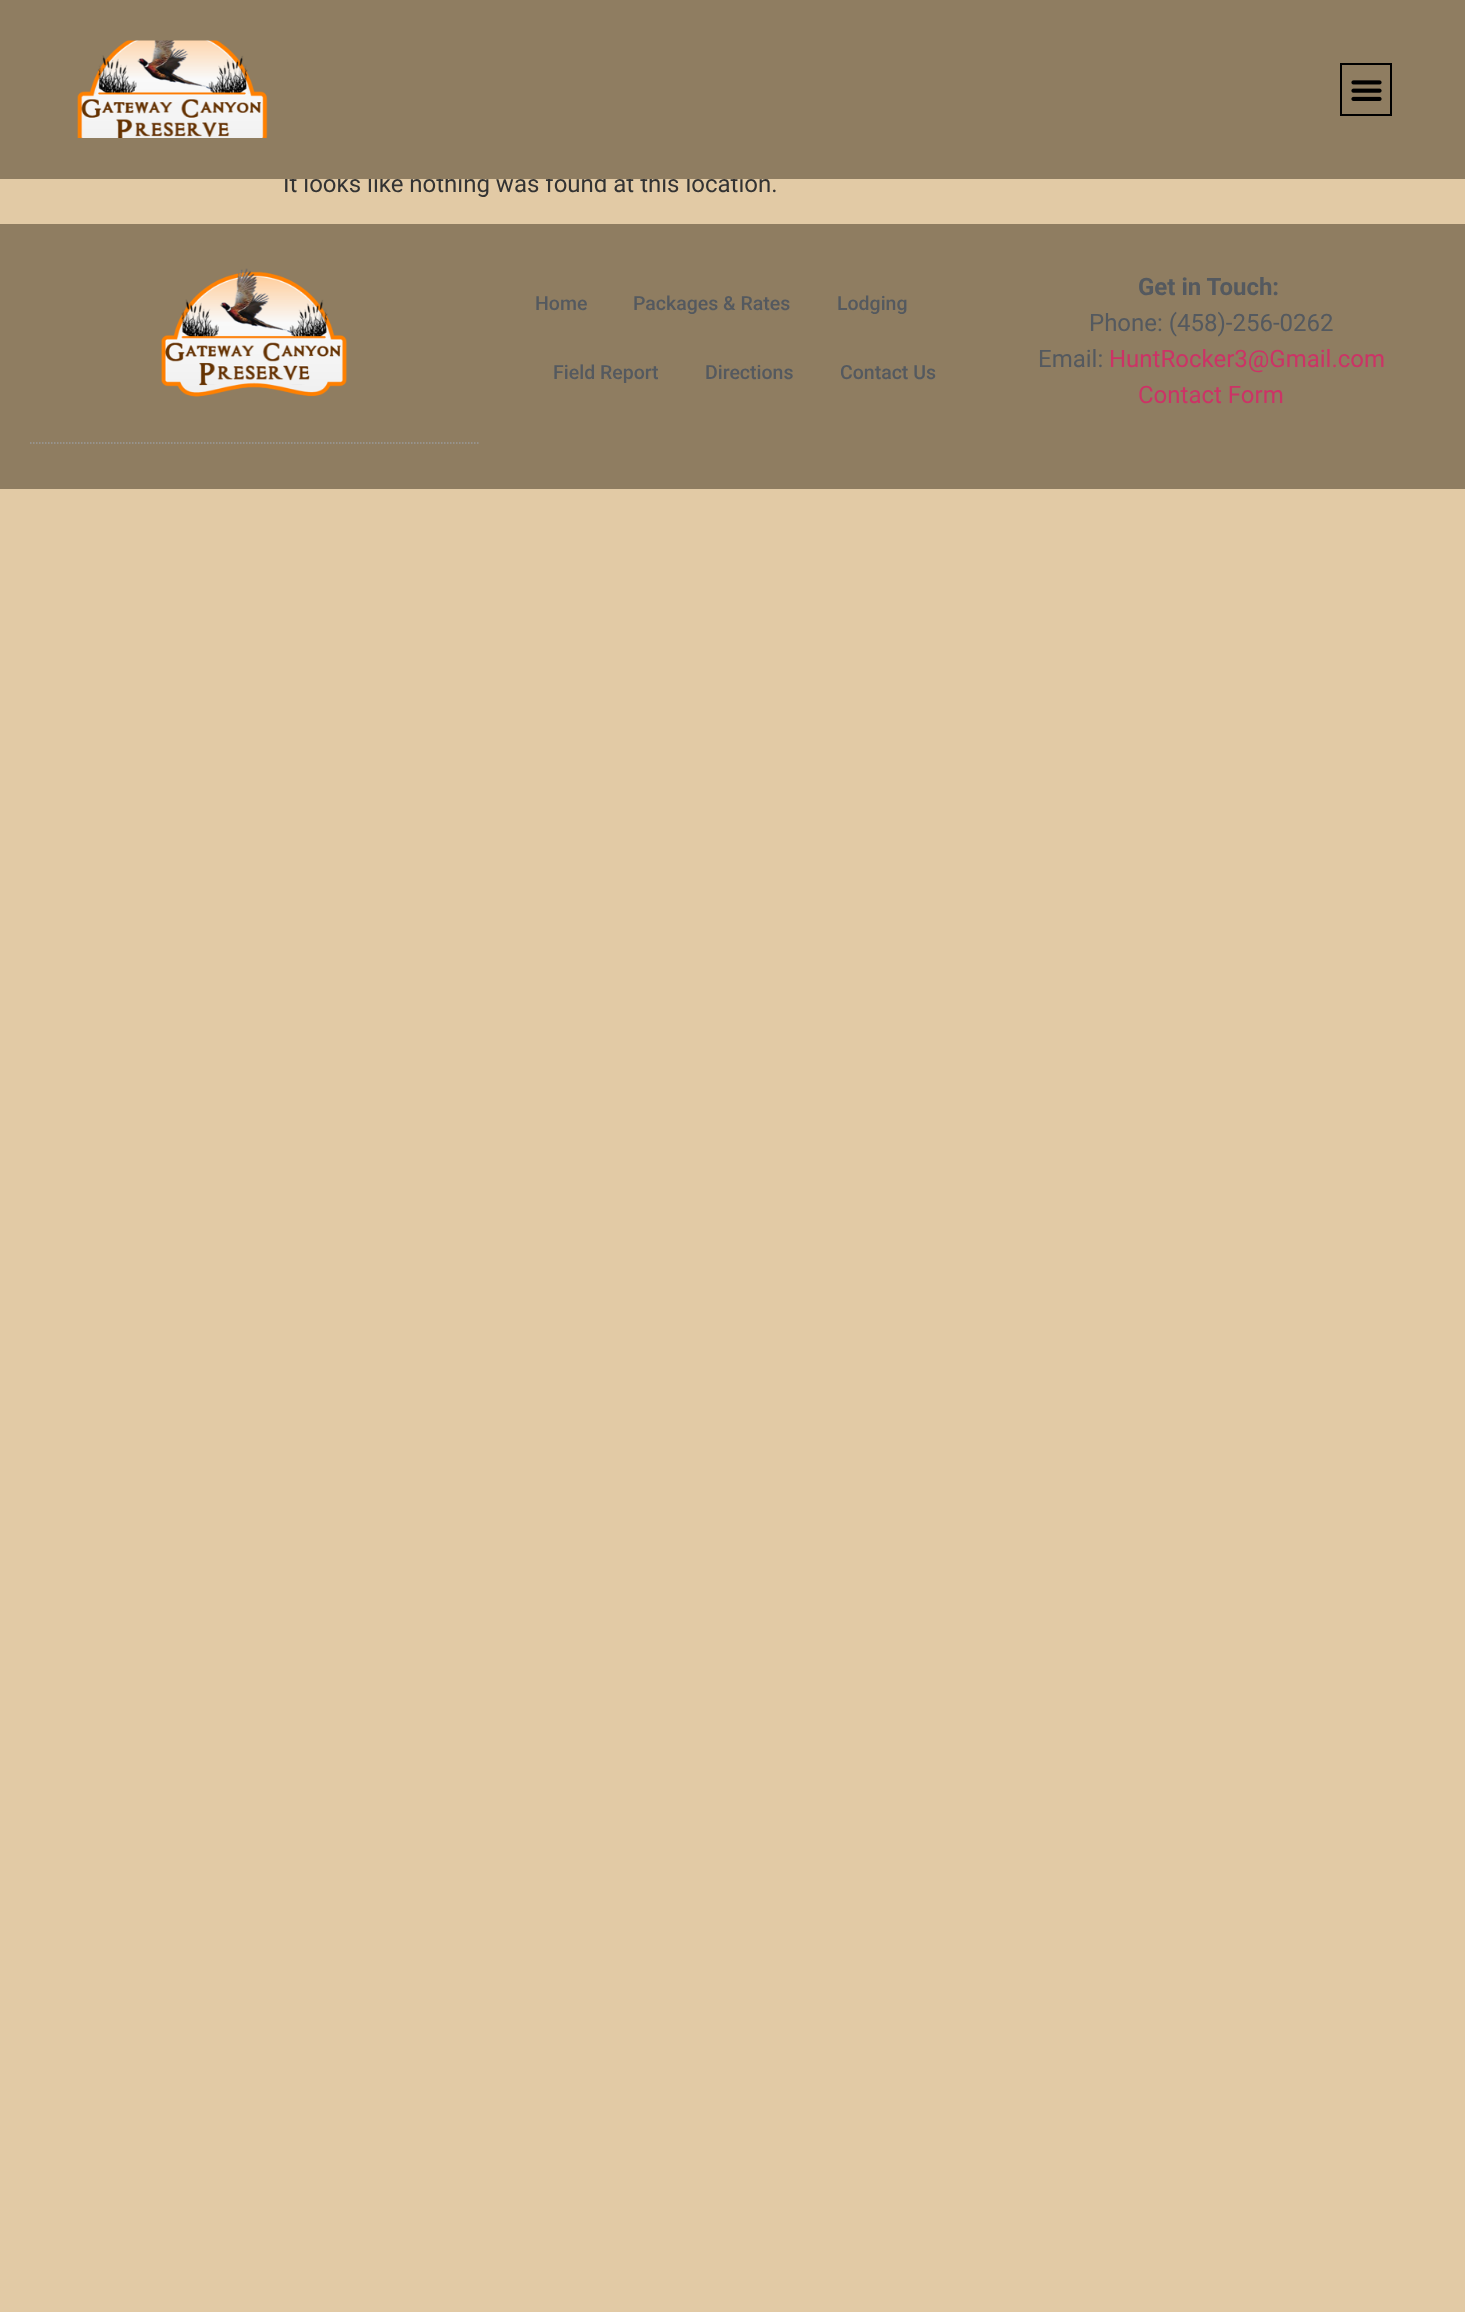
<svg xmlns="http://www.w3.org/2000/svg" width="1465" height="2312">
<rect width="100%" height="100%" fill="#e2caa5"/>
<text x="283" y="192" style="font-family:Roboto;font-size:24px;fill:#333">It looks like nothing was found at this location.</text>
<rect width="1465" height="179" fill="#8f7d61"/>
<image x="77" y="40" width="191" height="98" href="media/1.png"/>
<rect x="1341" y="64" width="50" height="51" fill="none" stroke="#000" stroke-width="2"/>
<image x="1351" y="80" width="31" height="21" href="media/2.png"/>
<rect y="224" width="1465" height="265" fill="#8f7d61"/>
<path d="M30 443h448.5" fill="none" stroke="#9b9b9b" stroke-width="1.5" stroke-dasharray="1.5 1.5"/>
<image x="161" y="268" width="186" height="129" href="media/3.png"/>
<text x="535" y="310" style="font-family:Roboto;font-size:19.5px;font-weight:500;fill:#54595f">Home</text>
<text x="633" y="310" style="font-family:Roboto;font-size:19.5px;font-weight:500;fill:#54595f">Packages &amp; Rates</text>
<text x="837" y="310" style="font-family:Roboto;font-size:19.5px;font-weight:500;fill:#54595f">Lodging</text>
<text x="553" y="379" style="font-family:Roboto;font-size:19.5px;font-weight:500;fill:#54595f">Field Report</text>
<text x="705" y="379" style="font-family:Roboto;font-size:19.5px;font-weight:500;fill:#54595f">Directions</text>
<text x="840" y="379" style="font-family:Roboto;font-size:19.5px;font-weight:500;fill:#54595f">Contact Us</text>
<text x="1138" y="295" style="font-family:Roboto;font-size:24px;font-weight:bold;fill:#54595f">Get in Touch:</text>
<text x="1089" y="331" style="font-family:Roboto;font-size:24px;fill:#54595f">Phone: (458)-256-0262</text>
<text x="1038" y="367" style="font-family:Roboto;font-size:24px;fill:#54595f">Email:</text>
<text x="1109" y="367" style="font-family:Roboto;font-size:24px;fill:#c36">HuntRocker3@Gmail.com</text>
<text x="1138" y="403" style="font-family:Roboto;font-size:24px;fill:#c36">Contact Form</text>
</svg>
